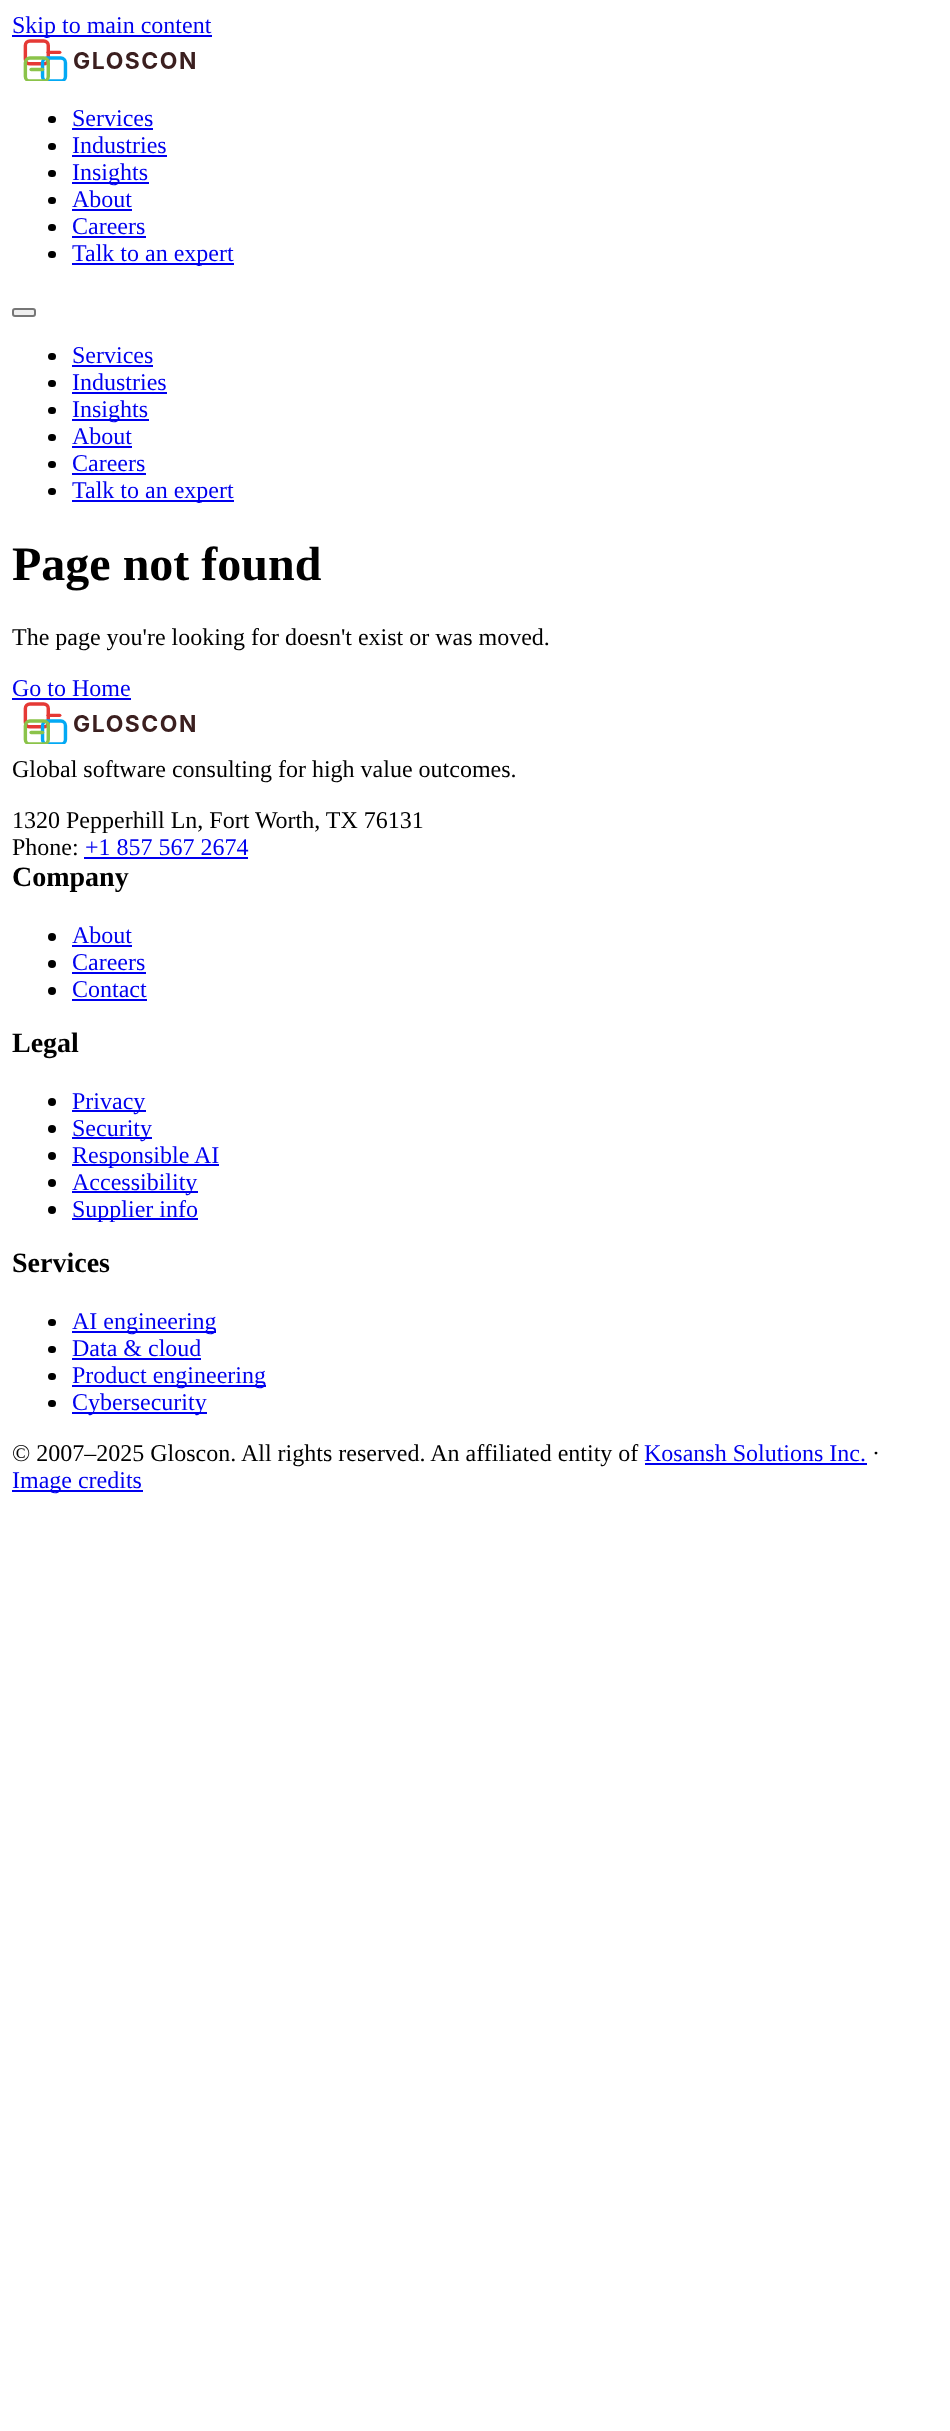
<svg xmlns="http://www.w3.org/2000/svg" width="950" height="2431">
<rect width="100%" height="100%" fill="#fff"/>
<rect x="12" y="35" width="200" height="2" fill="#00e"/>
<text x="12" y="33" style="font-family:Liberation Serif;font-size:24px;fill:#00e">Skip to main content</text>
<image x="23" y="39" width="172" height="42" href="media/1.png"/>
<rect x="48" y="116" width="8" height="7" rx="3.5" fill="#000"/>
<text x="72" y="126" style="font-family:Liberation Serif;font-size:24px;fill:#00e">Services</text>
<rect x="72" y="128" width="81" height="2" fill="#00e"/>
<rect x="48" y="143" width="8" height="7" rx="3.5" fill="#000"/>
<text x="72" y="153" style="font-family:Liberation Serif;font-size:24px;fill:#00e">Industries</text>
<rect x="72" y="155" width="95" height="2" fill="#00e"/>
<rect x="48" y="170" width="8" height="7" rx="3.5" fill="#000"/>
<rect x="72" y="182" width="77" height="2" fill="#00e"/>
<text x="72" y="180" style="font-family:Liberation Serif;font-size:24px;fill:#00e">Insights</text>
<rect x="48" y="197" width="8" height="7" rx="3.5" fill="#000"/>
<text x="72" y="207" style="font-family:Liberation Serif;font-size:24px;fill:#00e">About</text>
<rect x="72" y="209" width="60" height="2" fill="#00e"/>
<rect x="48" y="224" width="8" height="7" rx="3.5" fill="#000"/>
<text x="72" y="234" style="font-family:Liberation Serif;font-size:24px;fill:#00e">Careers</text>
<rect x="72" y="236" width="74" height="2" fill="#00e"/>
<rect x="48" y="251" width="8" height="7" rx="3.5" fill="#000"/>
<rect x="72" y="263" width="162" height="2" fill="#00e"/>
<text x="72" y="261" style="font-family:Liberation Serif;font-size:24px;fill:#00e">Talk to an expert</text>
<rect x="13" y="309" width="22" height="7" rx="2" fill="#efefef" stroke="#767676" stroke-width="2"/>
<rect x="48" y="353" width="8" height="7" rx="3.5" fill="#000"/>
<text x="72" y="363" style="font-family:Liberation Serif;font-size:24px;fill:#00e">Services</text>
<rect x="72" y="365" width="81" height="2" fill="#00e"/>
<rect x="48" y="380" width="8" height="7" rx="3.5" fill="#000"/>
<text x="72" y="390" style="font-family:Liberation Serif;font-size:24px;fill:#00e">Industries</text>
<rect x="72" y="392" width="95" height="2" fill="#00e"/>
<rect x="48" y="407" width="8" height="7" rx="3.5" fill="#000"/>
<rect x="72" y="419" width="77" height="2" fill="#00e"/>
<text x="72" y="417" style="font-family:Liberation Serif;font-size:24px;fill:#00e">Insights</text>
<rect x="48" y="434" width="8" height="7" rx="3.5" fill="#000"/>
<text x="72" y="444" style="font-family:Liberation Serif;font-size:24px;fill:#00e">About</text>
<rect x="72" y="446" width="60" height="2" fill="#00e"/>
<rect x="48" y="461" width="8" height="7" rx="3.5" fill="#000"/>
<text x="72" y="471" style="font-family:Liberation Serif;font-size:24px;fill:#00e">Careers</text>
<rect x="72" y="473" width="74" height="2" fill="#00e"/>
<rect x="48" y="488" width="8" height="7" rx="3.5" fill="#000"/>
<rect x="72" y="500" width="162" height="2" fill="#00e"/>
<text x="72" y="498" style="font-family:Liberation Serif;font-size:24px;fill:#00e">Talk to an expert</text>
<text x="12" y="580" style="font-family:Liberation Serif;font-size:48px;font-weight:bold;fill:#000">Page not found</text>
<text x="12" y="645" style="font-family:Liberation Serif;font-size:24px;fill:#000">The page you're looking for doesn't exist or was moved.</text>
<text x="12" y="696" style="font-family:Liberation Serif;font-size:24px;fill:#00e">Go to Home</text>
<rect x="12" y="698" width="119" height="2" fill="#00e"/>
<image x="23" y="702" width="172" height="42" href="media/1.png"/>
<text x="12" y="777" style="font-family:Liberation Serif;font-size:24px;fill:#000">Global software consulting for high value outcomes.</text>
<text x="12" y="828" style="font-family:Liberation Serif;font-size:24px;fill:#000">1320 Pepperhill Ln, Fort Worth, TX 76131</text>
<text x="12" y="855" style="font-family:Liberation Serif;font-size:24px;fill:#000">Phone:</text>
<text x="85" y="855" style="font-family:Liberation Serif;font-size:24px;fill:#00e">+1 857 567 2674</text>
<rect x="84" y="857" width="164" height="2" fill="#00e"/>
<text x="12" y="886" style="font-family:Liberation Serif;font-size:28px;font-weight:bold;fill:#000">Company</text>
<circle cx="52" cy="937" r="4" fill="#000"/>
<text x="72" y="943" style="font-family:Liberation Serif;font-size:24px;fill:#00e">About</text>
<rect x="72" y="945" width="60" height="2" fill="#00e"/>
<circle cx="52" cy="964" r="4" fill="#000"/>
<text x="72" y="970" style="font-family:Liberation Serif;font-size:24px;fill:#00e">Careers</text>
<rect x="72" y="972" width="74" height="2" fill="#00e"/>
<circle cx="52" cy="991" r="4" fill="#000"/>
<text x="72" y="997" style="font-family:Liberation Serif;font-size:24px;fill:#00e">Contact</text>
<rect x="72" y="999" width="75" height="2" fill="#00e"/>
<text x="12" y="1052" style="font-family:Liberation Serif;font-size:28px;font-weight:bold;fill:#000">Legal</text>
<circle cx="52" cy="1102" r="4" fill="#000"/>
<rect x="72" y="1110" width="74" height="2" fill="#00e"/>
<text x="72" y="1109" style="font-family:Liberation Serif;font-size:24px;fill:#00e">Privacy</text>
<circle cx="52" cy="1129" r="4" fill="#000"/>
<rect x="72" y="1137" width="80" height="2" fill="#00e"/>
<text x="72" y="1136" style="font-family:Liberation Serif;font-size:24px;fill:#00e">Security</text>
<circle cx="52" cy="1156" r="4" fill="#000"/>
<rect x="72" y="1164" width="147" height="2" fill="#00e"/>
<text x="72" y="1163" style="font-family:Liberation Serif;font-size:24px;fill:#00e">Responsible AI</text>
<circle cx="52" cy="1183" r="4" fill="#000"/>
<rect x="72" y="1191" width="126" height="2" fill="#00e"/>
<text x="72" y="1190" style="font-family:Liberation Serif;font-size:24px;fill:#00e">Accessibility</text>
<circle cx="52" cy="1210" r="4" fill="#000"/>
<rect x="72" y="1218" width="126" height="2" fill="#00e"/>
<text x="72" y="1217" style="font-family:Liberation Serif;font-size:24px;fill:#00e">Supplier info</text>
<text x="12" y="1272" style="font-family:Liberation Serif;font-size:28px;font-weight:bold;fill:#000">Services</text>
<rect x="48" y="1319" width="8" height="7" rx="3.5" fill="#000"/>
<rect x="72" y="1331" width="144" height="2" fill="#00e"/>
<text x="72" y="1329" style="font-family:Liberation Serif;font-size:24px;fill:#00e">AI engineering</text>
<rect x="48" y="1346" width="8" height="7" rx="3.5" fill="#000"/>
<text x="72" y="1356" style="font-family:Liberation Serif;font-size:24px;fill:#00e">Data &amp; cloud</text>
<rect x="72" y="1358" width="129" height="2" fill="#00e"/>
<rect x="48" y="1373" width="8" height="7" rx="3.5" fill="#000"/>
<rect x="72" y="1385" width="194" height="2" fill="#00e"/>
<text x="72" y="1383" style="font-family:Liberation Serif;font-size:24px;fill:#00e">Product engineering</text>
<rect x="48" y="1400" width="8" height="7" rx="3.5" fill="#000"/>
<rect x="72" y="1412" width="135" height="2" fill="#00e"/>
<text x="72" y="1410" style="font-family:Liberation Serif;font-size:24px;fill:#00e">Cybersecurity</text>
<text x="12" y="1461" style="font-family:Liberation Serif;font-size:24px;fill:#000">© 2007–2025 Gloscon. All rights reserved. An affiliated entity of</text>
<text x="644" y="1461" style="font-family:Liberation Serif;font-size:24px;fill:#00e">Kosansh Solutions Inc.</text>
<rect x="645" y="1463" width="222" height="2" fill="#00e"/>
<text x="872" y="1461" style="font-family:Liberation Serif;font-size:24px;fill:#000">·</text>
<rect x="12" y="1490" width="131" height="2" fill="#00e"/>
<text x="12" y="1488" style="font-family:Liberation Serif;font-size:24px;fill:#00e">Image credits</text>
</svg>
